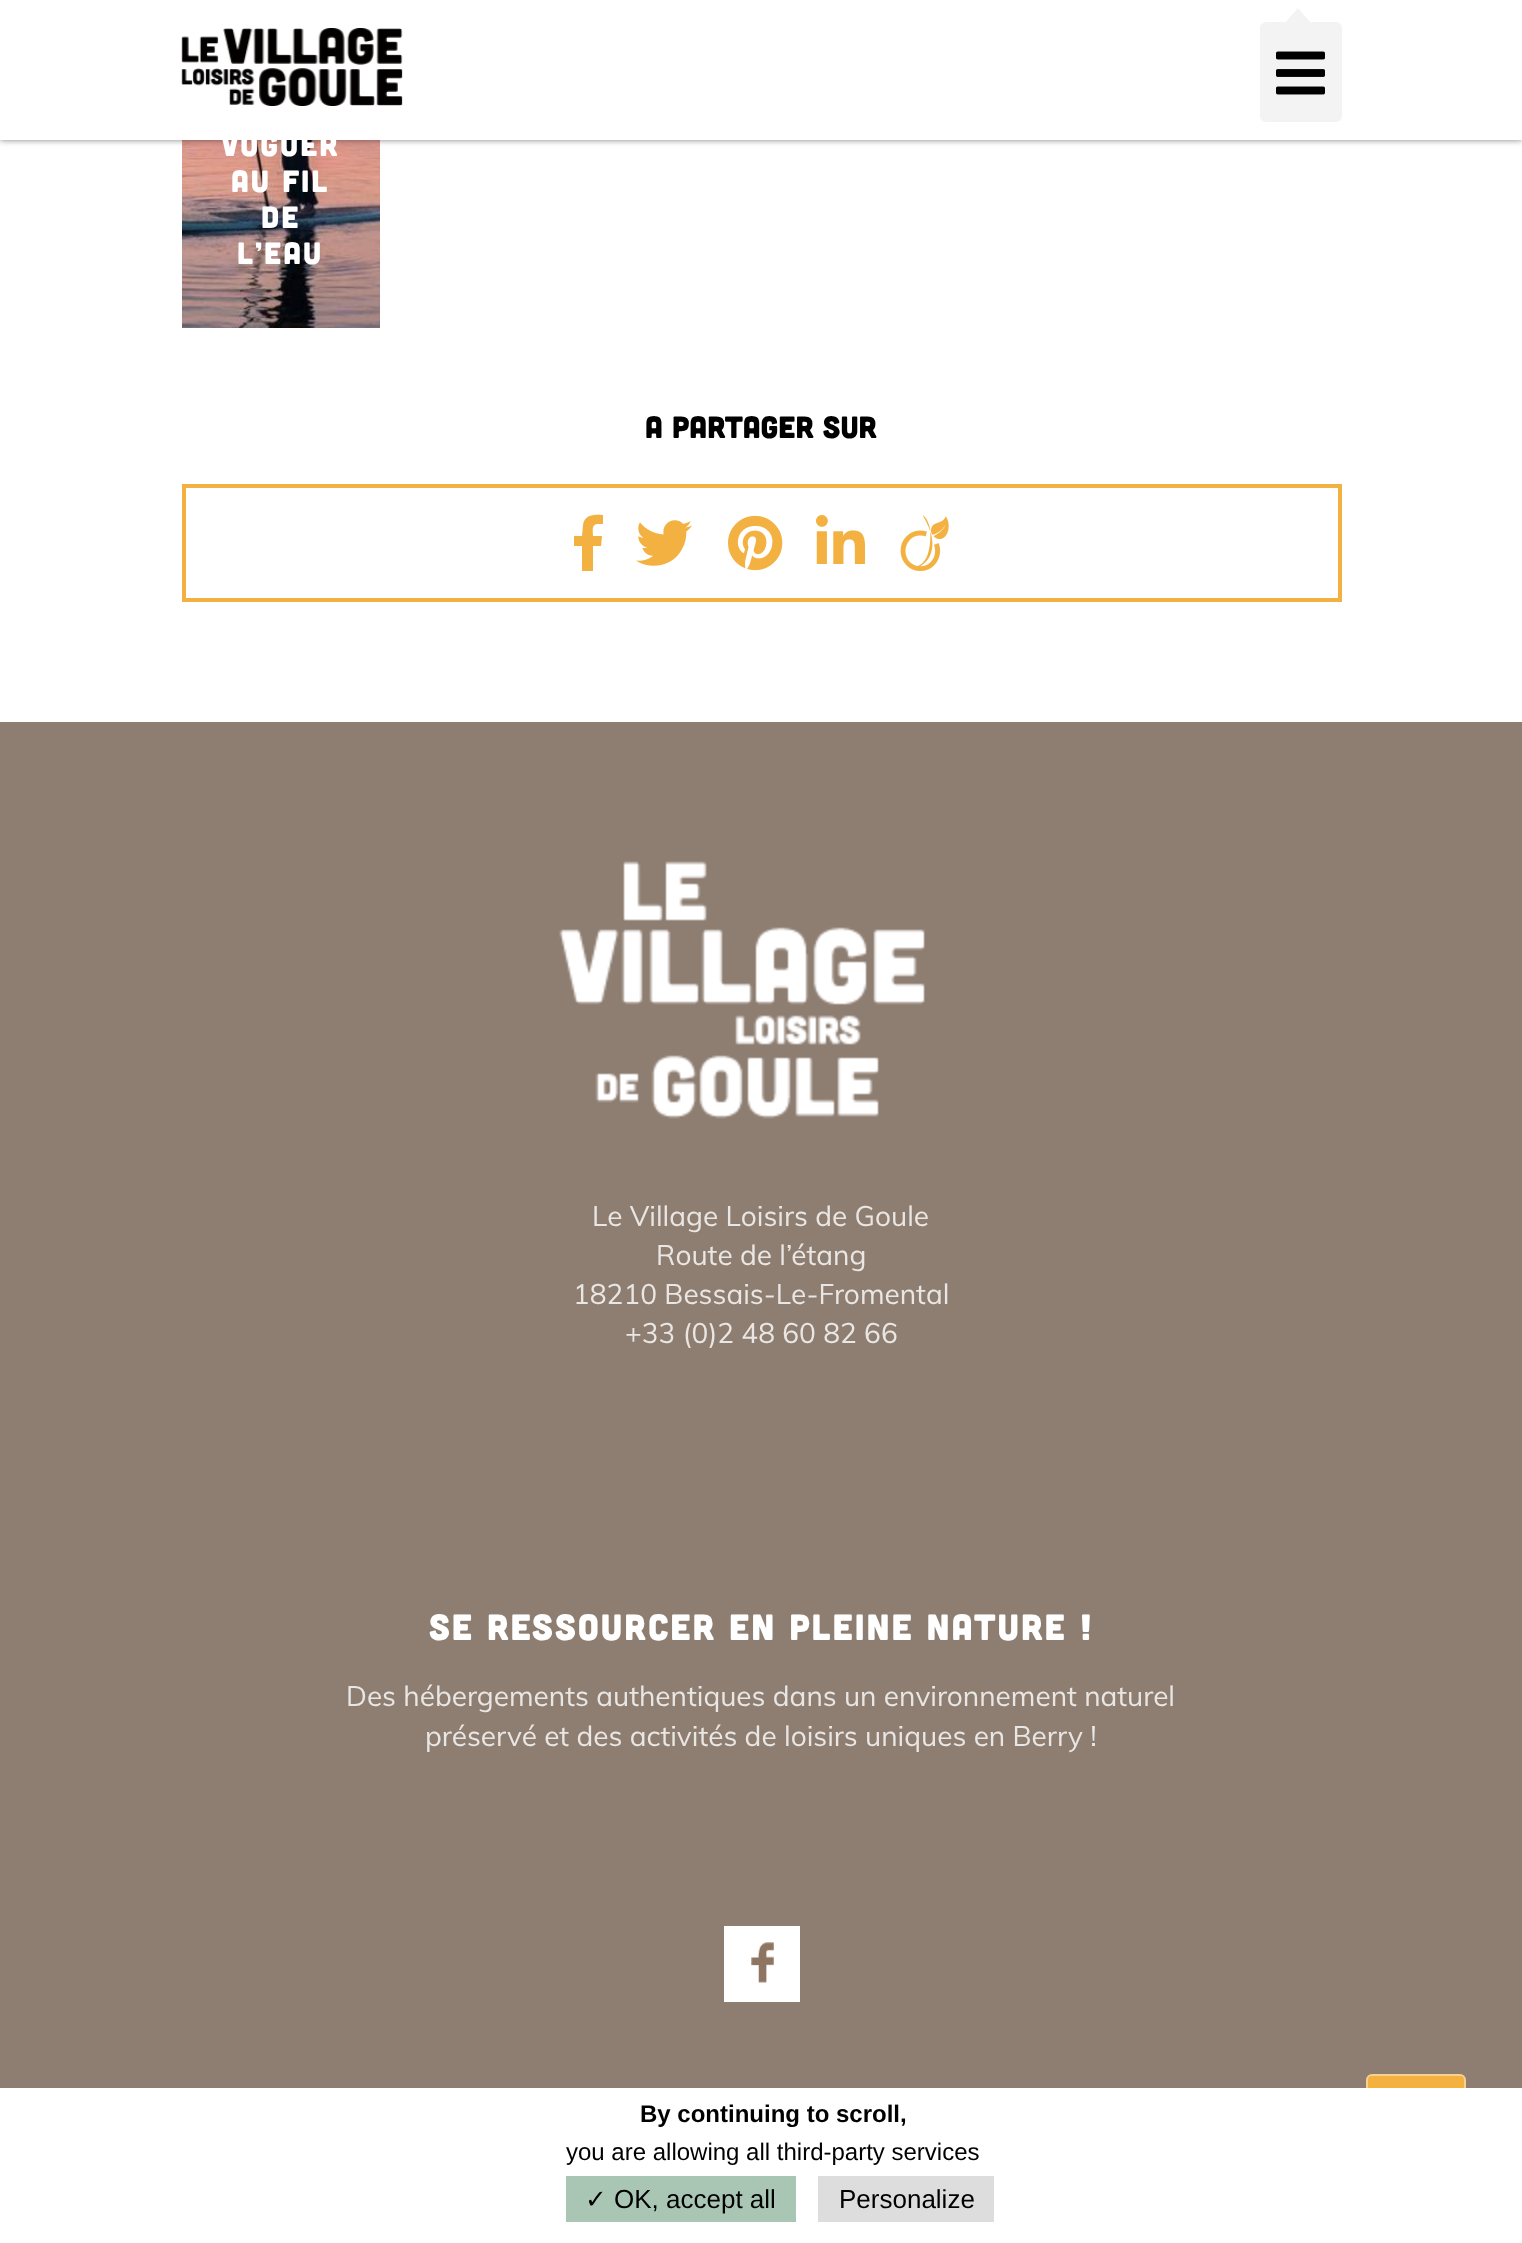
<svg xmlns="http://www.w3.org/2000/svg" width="1522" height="2243">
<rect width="100%" height="100%" fill="#fff"/>
<image x="182" y="140" width="198" height="188" href="media/3.png"/>
<rect width="1522" height="140" fill="#00000080" filter="blur(3px)"/>
<rect width="1522" height="140" fill="#fff"/>
<image x="181" y="28" width="222" height="78" href="media/1.png"/>
<rect x="1260" y="22" width="82" height="100" rx="6" fill="#f3f3f3"/>
<path d="M1312 24h-28l14-16z" fill="#f3f3f3"/>
<image x="1276" y="51" width="49" height="44" href="media/2.png"/>
<text x="221" y="156" style="font-family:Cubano;font-size:30.75px;letter-spacing:2px;fill:#fff">VOGUER</text>
<text x="231" y="192" style="font-family:Cubano;font-size:30.75px;letter-spacing:2px;fill:#fff">AU FIL</text>
<text x="261" y="228" style="font-family:Cubano;font-size:30.75px;letter-spacing:2px;fill:#fff">DE</text>
<text x="237" y="264" style="font-family:Cubano;font-size:30.75px;letter-spacing:2px;fill:#fff">L’EAU</text>
<text x="645" y="438" style="font-family:Cubano;font-size:30.75px;fill:#000">A partager sur</text>
<rect x="184" y="486" width="1156" height="114" fill="none" stroke="#f3b142" stroke-width="4"/>
<path d="M598 524c-7 0-5 7-5 12h9l-1 10h-8v25h-11v-25h-8v-10h8l1-11c1-10 11-11 20-10v9z" fill="#f3b142"/>
<image x="636" y="520" width="56" height="46" href="media/4.png"/>
<image x="728" y="515" width="55" height="56" href="media/5.png"/>
<image x="816" y="515" width="49" height="49" href="media/6.png"/>
<image x="900" y="515" width="49" height="56" href="media/7.png"/>
<rect y="722" width="1522" height="1366" fill="#8e7e72"/>
<image x="559" y="861" width="366" height="258" href="media/8.png"/>
<text x="592" y="1226" style="font-family:Muli;font-size:28px;fill:#e9e6e3">Le Village Loisirs de Goule</text>
<text x="656" y="1265" style="font-family:Muli;font-size:28px;fill:#e9e6e3">Route de l’étang</text>
<text x="573" y="1304" style="font-family:Muli;font-size:28px;fill:#e9e6e3">18210 Bessais-Le-Fromental</text>
<text x="625" y="1343" style="font-family:Muli;font-size:28px;fill:#e9e6e3">+33 (0)2 48 60 82 66</text>
<text x="429" y="1640" style="font-family:Cubano;font-size:36.4px;letter-spacing:2px;fill:#fff">SE RESSOURCER EN PLEINE NATURE !</text>
<text x="346" y="1706" style="font-family:Muli;font-size:28px;fill:#e9e6e3">Des hébergements authentiques dans un environnement naturel</text>
<text x="425" y="1746" style="font-family:Muli;font-size:28px;fill:#e9e6e3">préservé et des activités de loisirs uniques en Berry !</text>
<image x="724" y="1926" width="76" height="76" href="media/9.png"/>
<rect x="1367" y="2075" width="98" height="98" rx="5" fill="#f3b142" stroke="#f8d18f" stroke-width="2"/>
<rect x="1366" y="2088" width="100" height="86" fill="#fff"/>
<text x="640" y="2122" style="font-family:Liberation Sans;font-size:24px;font-weight:bold;fill:#000">By continuing to scroll,</text>
<text x="566" y="2160" style="font-family:Liberation Sans;font-size:24px;fill:#000">you are allowing all third-party services</text>
<rect x="566" y="2176" width="230" height="46" fill="#a9c6b5"/>
<text x="585" y="2208" style="font-family:DejaVu Sans;font-size:26px;fill:#000">✓</text>
<text x="614" y="2208" style="font-family:Liberation Sans;font-size:26px;fill:#000">OK, accept all</text>
<rect x="818" y="2176" width="176" height="46" fill="#ddd"/>
<text x="839" y="2208" style="font-family:Liberation Sans;font-size:26px;fill:#000">Personalize</text>
</svg>
